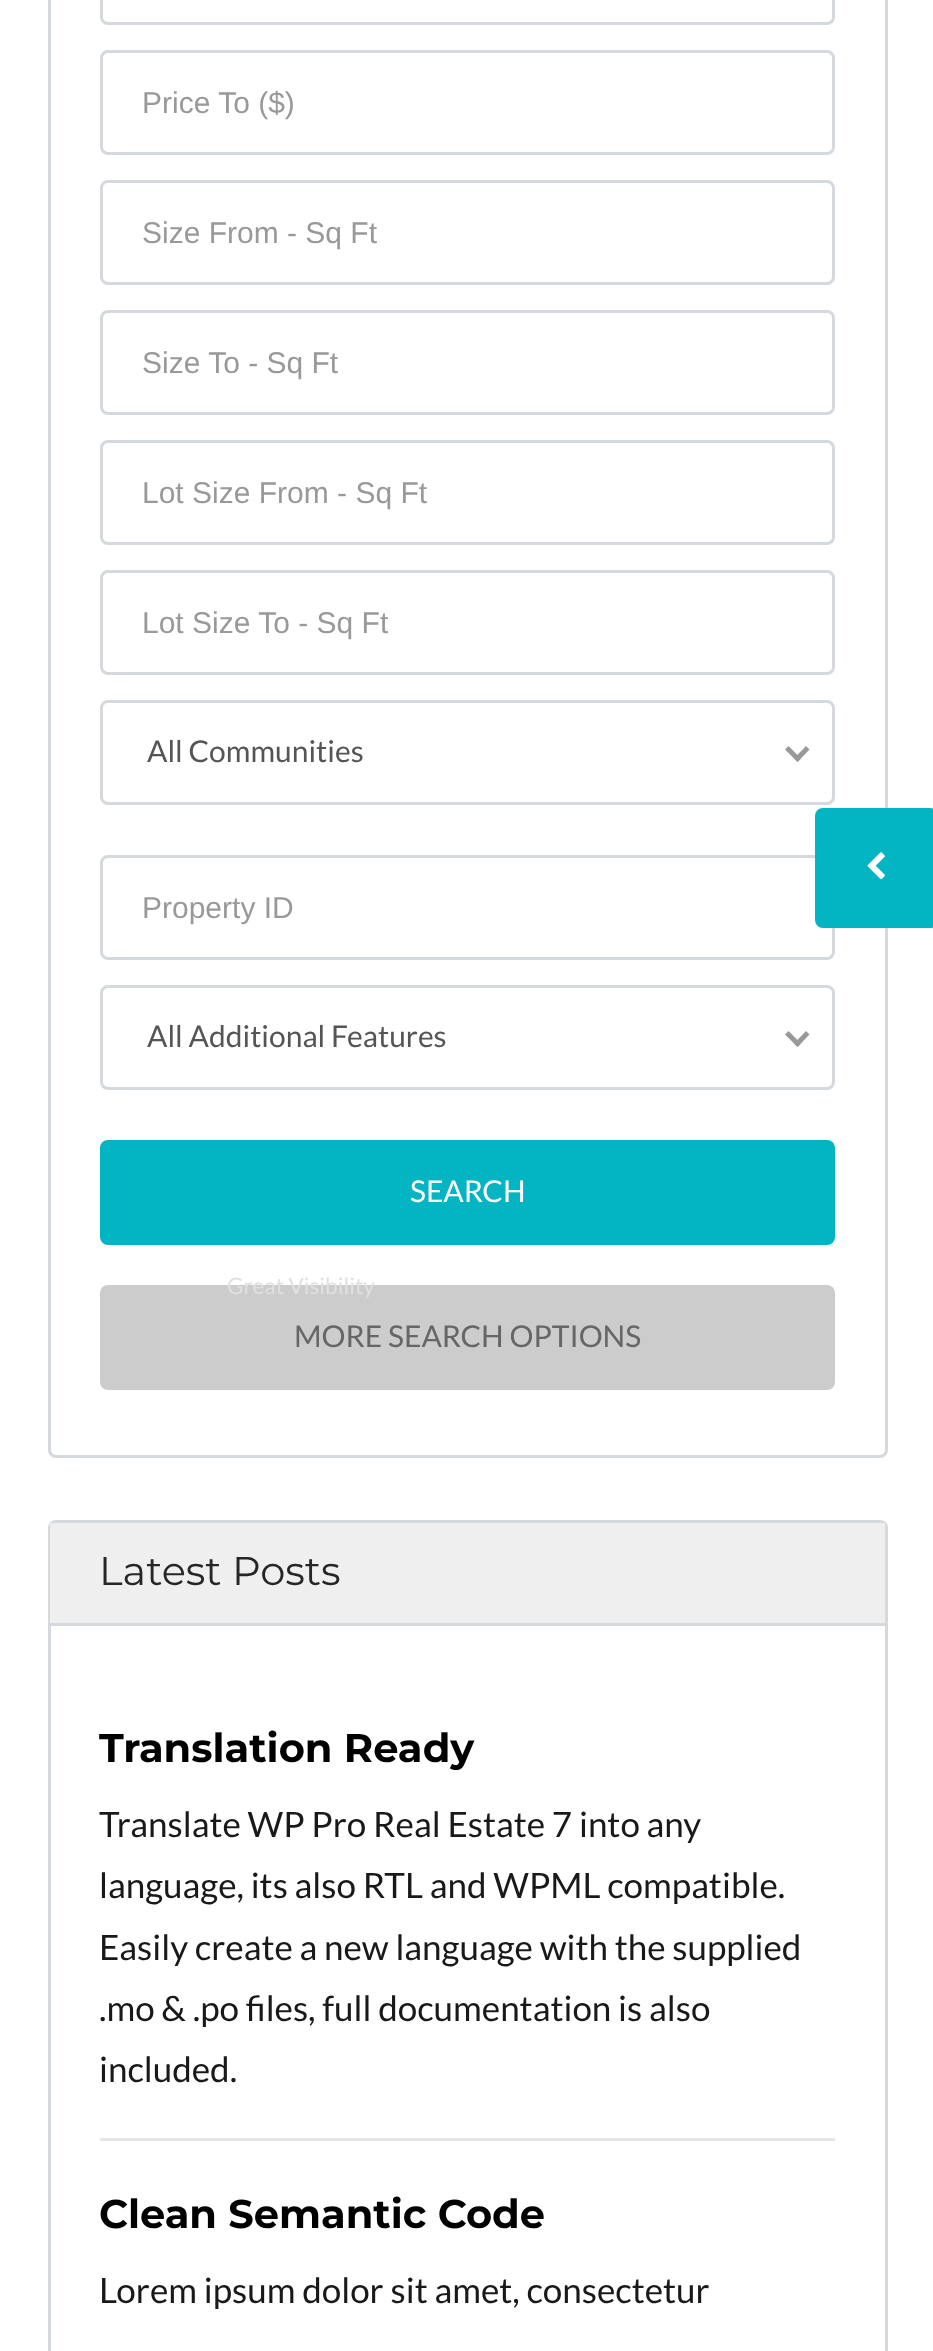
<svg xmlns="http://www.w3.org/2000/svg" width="933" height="2351">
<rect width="100%" height="100%" fill="#fff"/>
<rect x="49.5" y="-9.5" width="837" height="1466" rx="6.5" fill="none" stroke="#d5d9dd" stroke-width="3"/>
<rect x="101.5" y="-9.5" width="732" height="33" rx="6.5" fill="none" stroke="#d5d9dd" stroke-width="3"/>
<rect x="101.5" y="51.5" width="732" height="102" rx="6.5" fill="none" stroke="#d5d9dd" stroke-width="3"/>
<text x="142" y="113" style="font-family:Liberation Sans;font-size:30px;fill:#999">Price To ($)</text>
<rect x="101.5" y="181.5" width="732" height="102" rx="6.5" fill="none" stroke="#d5d9dd" stroke-width="3"/>
<text x="142" y="243" style="font-family:Liberation Sans;font-size:30px;fill:#999">Size From - Sq Ft</text>
<rect x="101.5" y="311.5" width="732" height="102" rx="6.5" fill="none" stroke="#d5d9dd" stroke-width="3"/>
<text x="142" y="373" style="font-family:Liberation Sans;font-size:30px;fill:#999">Size To - Sq Ft</text>
<rect x="101.5" y="441.5" width="732" height="102" rx="6.5" fill="none" stroke="#d5d9dd" stroke-width="3"/>
<text x="142" y="503" style="font-family:Liberation Sans;font-size:30px;fill:#999">Lot Size From - Sq Ft</text>
<rect x="101.5" y="571.5" width="732" height="102" rx="6.5" fill="none" stroke="#d5d9dd" stroke-width="3"/>
<text x="142" y="633" style="font-family:Liberation Sans;font-size:30px;fill:#999">Lot Size To - Sq Ft</text>
<rect x="101.5" y="701.5" width="732" height="102" rx="6.5" fill="none" stroke="#d5d9dd" stroke-width="3"/>
<text x="147" y="762" style="font-family:Lato;font-size:30px;fill:#555">All Communities</text>
<path d="M806 746l3.5 3.5l-12 12.5l-3.5-3.5z" fill="#999"/>
<path d="M788.5 746l12.5 12.5l-3.5 3.5l-12.5-12.5z" fill="#999"/>
<rect x="101.5" y="856.5" width="732" height="102" rx="6.5" fill="none" stroke="#d5d9dd" stroke-width="3"/>
<text x="142" y="918" style="font-family:Liberation Sans;font-size:30px;fill:#999">Property ID</text>
<rect x="101.5" y="986.5" width="732" height="102" rx="6.5" fill="none" stroke="#d5d9dd" stroke-width="3"/>
<text x="147" y="1047" style="font-family:Lato;font-size:30px;fill:#555">All Additional Features</text>
<path d="M806 1031l3.5 3.5l-12 12.5l-3.5-3.5z" fill="#999"/>
<path d="M788.5 1031l12.5 12.5l-3.5 3.5l-12.5-12.5z" fill="#999"/>
<rect x="100" y="1285" width="735" height="105" rx="8" fill="#ccc"/>
<text x="227" y="1294" style="font-family:Lato;font-size:22.5px;fill:#e0e0e0">Great Visibility</text>
<rect x="100" y="1140" width="735" height="105" rx="8" fill="#03b5c3"/>
<text x="410" y="1202" style="font-family:Lato;font-size:30px;fill:#fff">SEARCH</text>
<text x="294" y="1347" style="font-family:Lato;font-size:30px;fill:#666">MORE SEARCH OPTIONS</text>
<rect x="49.5" y="1521.5" width="837" height="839" rx="6.5" fill="none" stroke="#d5d9dd" stroke-width="3"/>
<rect x="50" y="1523" width="835" height="100" fill="#efefef"/>
<rect x="50" y="1623" width="835" height="3" fill="#d5d9dd"/>
<text x="99" y="1585" style="font-family:Montserrat;font-size:40px;fill:#262624">Latest Posts</text>
<rect x="100" y="2138" width="735" height="3" fill="#e6e6e6"/>
<text x="99" y="1762" style="font-family:Montserrat;font-size:40px;font-weight:bold;fill:#000">Translation Ready</text>
<text x="99" y="1837" style="font-family:Lato;font-size:35px;fill:#191919">Translate WP Pro Real Estate 7 into any</text>
<text x="99" y="1898" style="font-family:Lato;font-size:35px;fill:#191919">language, its also RTL and WPML compatible.</text>
<text x="99" y="1960" style="font-family:Lato;font-size:35px;fill:#191919">Easily create a new language with the supplied</text>
<text x="99" y="2021" style="font-family:Lato;font-size:35px;fill:#191919">.mo &amp; .po files, full documentation is also</text>
<text x="99" y="2082" style="font-family:Lato;font-size:35px;fill:#191919">included.</text>
<text x="99" y="2228" style="font-family:Montserrat;font-size:40px;font-weight:bold;fill:#000">Clean Semantic Code</text>
<text x="99" y="2303" style="font-family:Lato;font-size:35px;fill:#191919">Lorem ipsum dolor sit amet, consectetur</text>
<rect x="815" y="808" width="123" height="120" rx="8" fill="#03b5c3"/>
<image x="867" y="852" width="18" height="28" href="media/1.png"/>
</svg>
